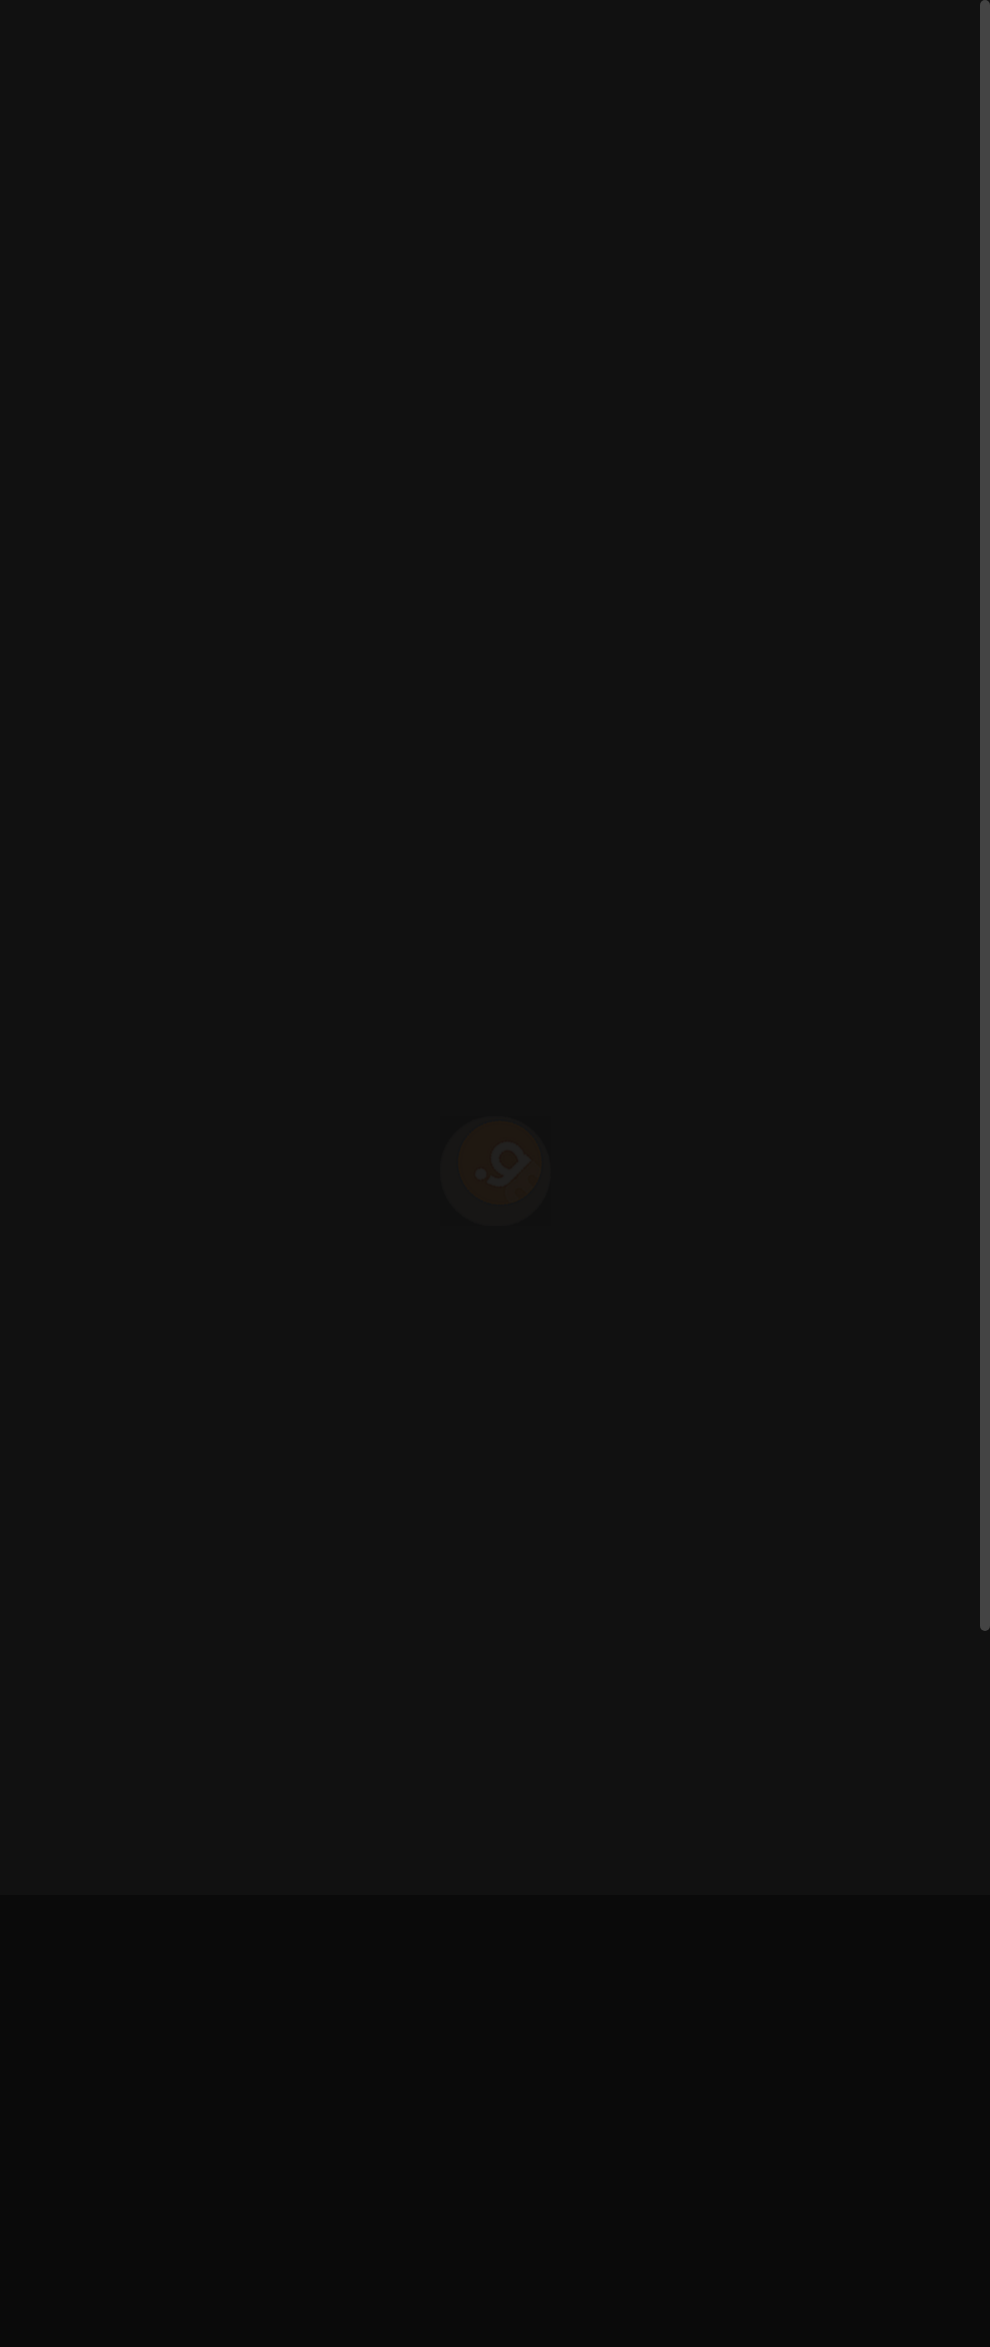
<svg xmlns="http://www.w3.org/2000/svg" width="990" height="2347">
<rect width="100%" height="100%" fill="#0a0a0a"/>
<rect width="990" height="1895" fill="#111"/>
<image x="440" y="1116" width="111" height="110" href="media/1.png"/>
<rect x="980" width="10" height="1631" rx="5" fill="#444"/>
</svg>
